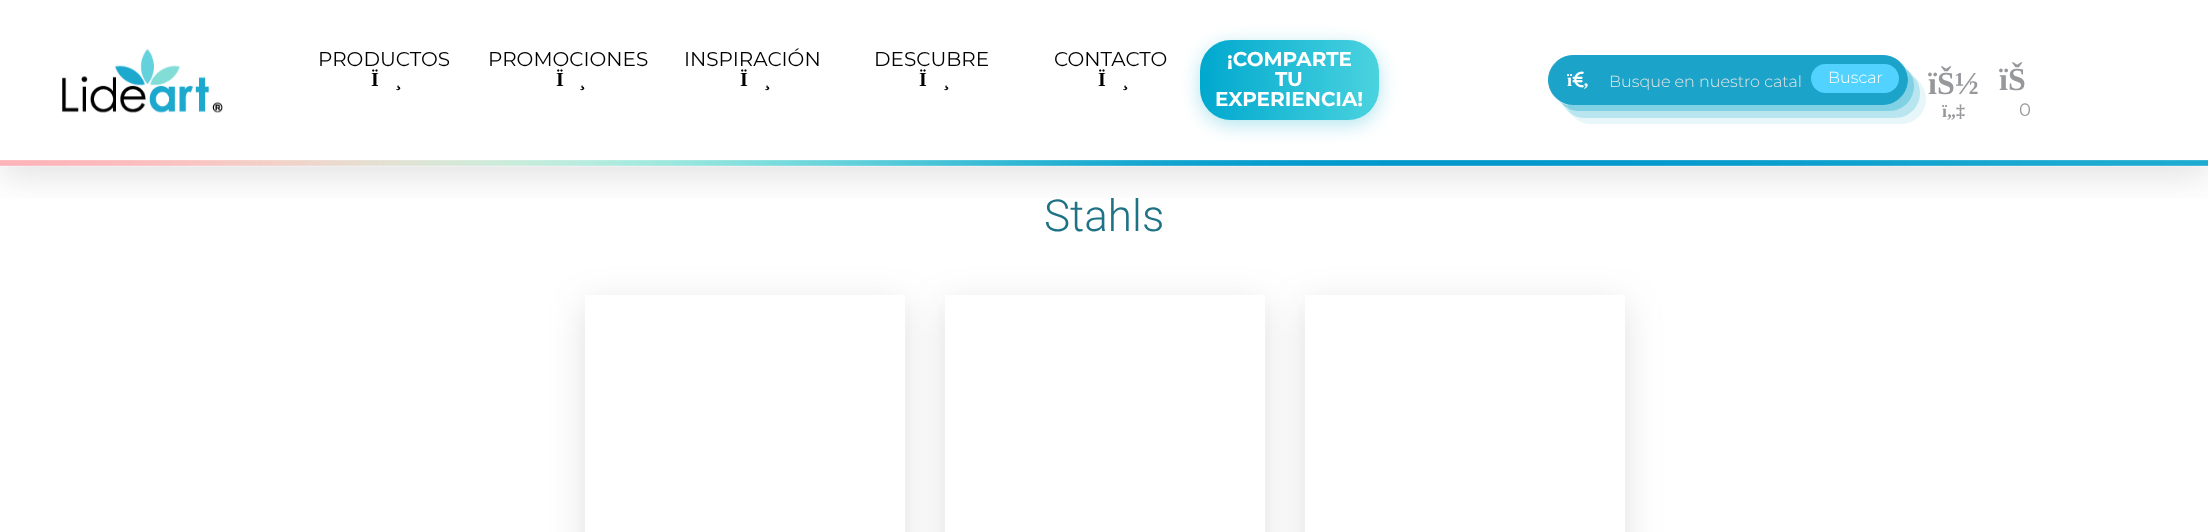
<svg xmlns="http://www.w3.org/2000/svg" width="2208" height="532">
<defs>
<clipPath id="clip1"><rect x="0" y="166" width="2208" height="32"/></clipPath>
<linearGradient id="g1" gradientUnits="userSpaceOnUse" x1="1200" y1="80" x2="1379" y2="80"><stop offset="0" stop-color="#00a8ce"/><stop offset="1" stop-color="#4ad3df"/></linearGradient>
<clipPath id="clip2"><path d="M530 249h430v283h-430zm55 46h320v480h-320z" clip-rule="evenodd"/></clipPath>
<clipPath id="clip3"><path d="M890 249h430v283h-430zm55 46h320v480h-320z" clip-rule="evenodd"/></clipPath>
<clipPath id="clip4"><path d="M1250 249h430v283h-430zm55 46h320v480h-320z" clip-rule="evenodd"/></clipPath>
</defs>
<rect width="100%" height="100%" fill="#fff"/>
<g clip-path="url(#clip1)">
<rect y="9" width="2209" height="166" fill="#64646f33" filter="blur(18px)"/>
</g>
<image x="62" y="49" width="161" height="64" href="media/1.png"/>
<text x="318" y="66" style="font-family:Montserrat;font-size:20px;fill:#000">PRODUCTOS</text>
<text x="371" y="86" style="font-family:Liberation Serif;font-size:20px;font-weight:bold;fill:#000">Ï</text>
<text x="395" y="86" style="font-family:Liberation Serif;font-size:20px;font-weight:bold;fill:#000">¸</text>
<text x="488" y="66" style="font-family:Montserrat;font-size:20px;fill:#000">PROMOCIONES</text>
<text x="556" y="86" style="font-family:Liberation Serif;font-size:20px;font-weight:bold;fill:#000">Ï</text>
<text x="579" y="86" style="font-family:Liberation Serif;font-size:20px;font-weight:bold;fill:#000">¸</text>
<text x="684" y="66" style="font-family:Montserrat;font-size:20px;fill:#000">INSPIRACIÓN</text>
<text x="740" y="86" style="font-family:Liberation Serif;font-size:20px;font-weight:bold;fill:#000">Ï</text>
<text x="764" y="86" style="font-family:Liberation Serif;font-size:20px;font-weight:bold;fill:#000">¸</text>
<text x="874" y="66" style="font-family:Montserrat;font-size:20px;fill:#000">DESCUBRE</text>
<text x="919" y="86" style="font-family:Liberation Serif;font-size:20px;font-weight:bold;fill:#000">Ï</text>
<text x="943" y="86" style="font-family:Liberation Serif;font-size:20px;font-weight:bold;fill:#000">¸</text>
<text x="1054" y="66" style="font-family:Montserrat;font-size:20px;fill:#000">CONTACTO</text>
<text x="1098" y="86" style="font-family:Liberation Serif;font-size:20px;font-weight:bold;fill:#000">Ï</text>
<text x="1122" y="86" style="font-family:Liberation Serif;font-size:20px;font-weight:bold;fill:#000">¸</text>
<rect x="1200" y="45" width="179" height="80" rx="31" fill="#00a8ce4d" filter="blur(9.5px)"/>
<rect x="1200" y="40" width="179" height="80" rx="31" fill="url(#g1)"/>
<text x="1227" y="66" style="font-family:Montserrat;font-size:20px;font-weight:bold;fill:#fff">¡COMPARTE</text>
<text x="1275" y="86" style="font-family:Montserrat;font-size:20px;font-weight:bold;fill:#fff">TU</text>
<text x="1215" y="106" style="font-family:Montserrat;font-size:20px;font-weight:bold;fill:#fff">EXPERIENCIA!</text>
<path d="M1567 104c2 12 12 20 24 20h310c14 0 25-11 25-25c0-12-8-22-19-24l1 5c0 14-12 25-26 25h-310z" fill="#e6f6f9"/>
<path d="M1562 103c4 9 13 15 23 15h310c14 0 25-11 25-25c0-10-6-19-14-23c1 3 2 7 2 10c0 14-12 25-26 25h-310c-3 0-7-1-10-2z" fill="#00a3c733"/>
<path d="M1559 101c5 6 12 10 20 10h310c14 0 25-11 25-25c0-9-5-17-12-21c4 4 6 9 6 15c0 14-12 25-26 25h-310c-4 0-9-1-13-4z" fill="#00a3c74d"/>
<rect x="1548.5" y="55.5" width="359" height="49" rx="24.5" fill="#1ca3c9" stroke="#1ca3c9"/>
<image x="1572" y="71" width="12" height="17" href="media/2.png"/>
<text x="1567" y="86" style="font-family:Liberation Serif;font-size:18px;font-weight:bold;fill:#fff">ï</text>
<text x="1583" y="86" style="font-family:Liberation Serif;font-size:18px;font-weight:bold;fill:#fff">‚</text>
<text x="1609" y="87" style="font-family:Montserrat;font-size:16px;font-weight:300;fill:#e6e6e6">Busque en nuestro catal</text>
<rect x="1811" y="64" width="88" height="29" rx="14.5" fill="#52d3ff"/>
<text x="1828" y="83" style="font-family:Montserrat;font-size:16px;font-weight:300;fill:#fff">Buscar</text>
<text x="1928" y="94" style="font-family:Liberation Serif;font-size:32px;font-weight:bold;fill:#97989b">ïŠ½</text>
<text x="1942" y="117" style="font-family:Liberation Serif;font-size:18px;font-weight:bold;fill:#97989b">ï„‡</text>
<text x="1999" y="90" style="font-family:Liberation Serif;font-size:32px;font-weight:bold;fill:#97989b">ïŠ</text>
<text x="2019" y="116" style="font-family:Montserrat;font-size:18px;fill:#97989b">0</text>
<image x="0" y="160" width="2208" height="7" href="media/3.png"/>
<text x="1044" y="231" style="font-family:Roboto;font-size:44px;font-weight:300;fill:#1e7285">Stahls</text>
<g clip-path="url(#clip2)">
<rect x="585" y="304" width="320" height="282" fill="#64646f33" filter="blur(18px)"/>
</g>
<g clip-path="url(#clip3)">
<rect x="945" y="304" width="320" height="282" fill="#64646f33" filter="blur(18px)"/>
</g>
<g clip-path="url(#clip4)">
<rect x="1305" y="304" width="320" height="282" fill="#64646f33" filter="blur(18px)"/>
</g>
</svg>
